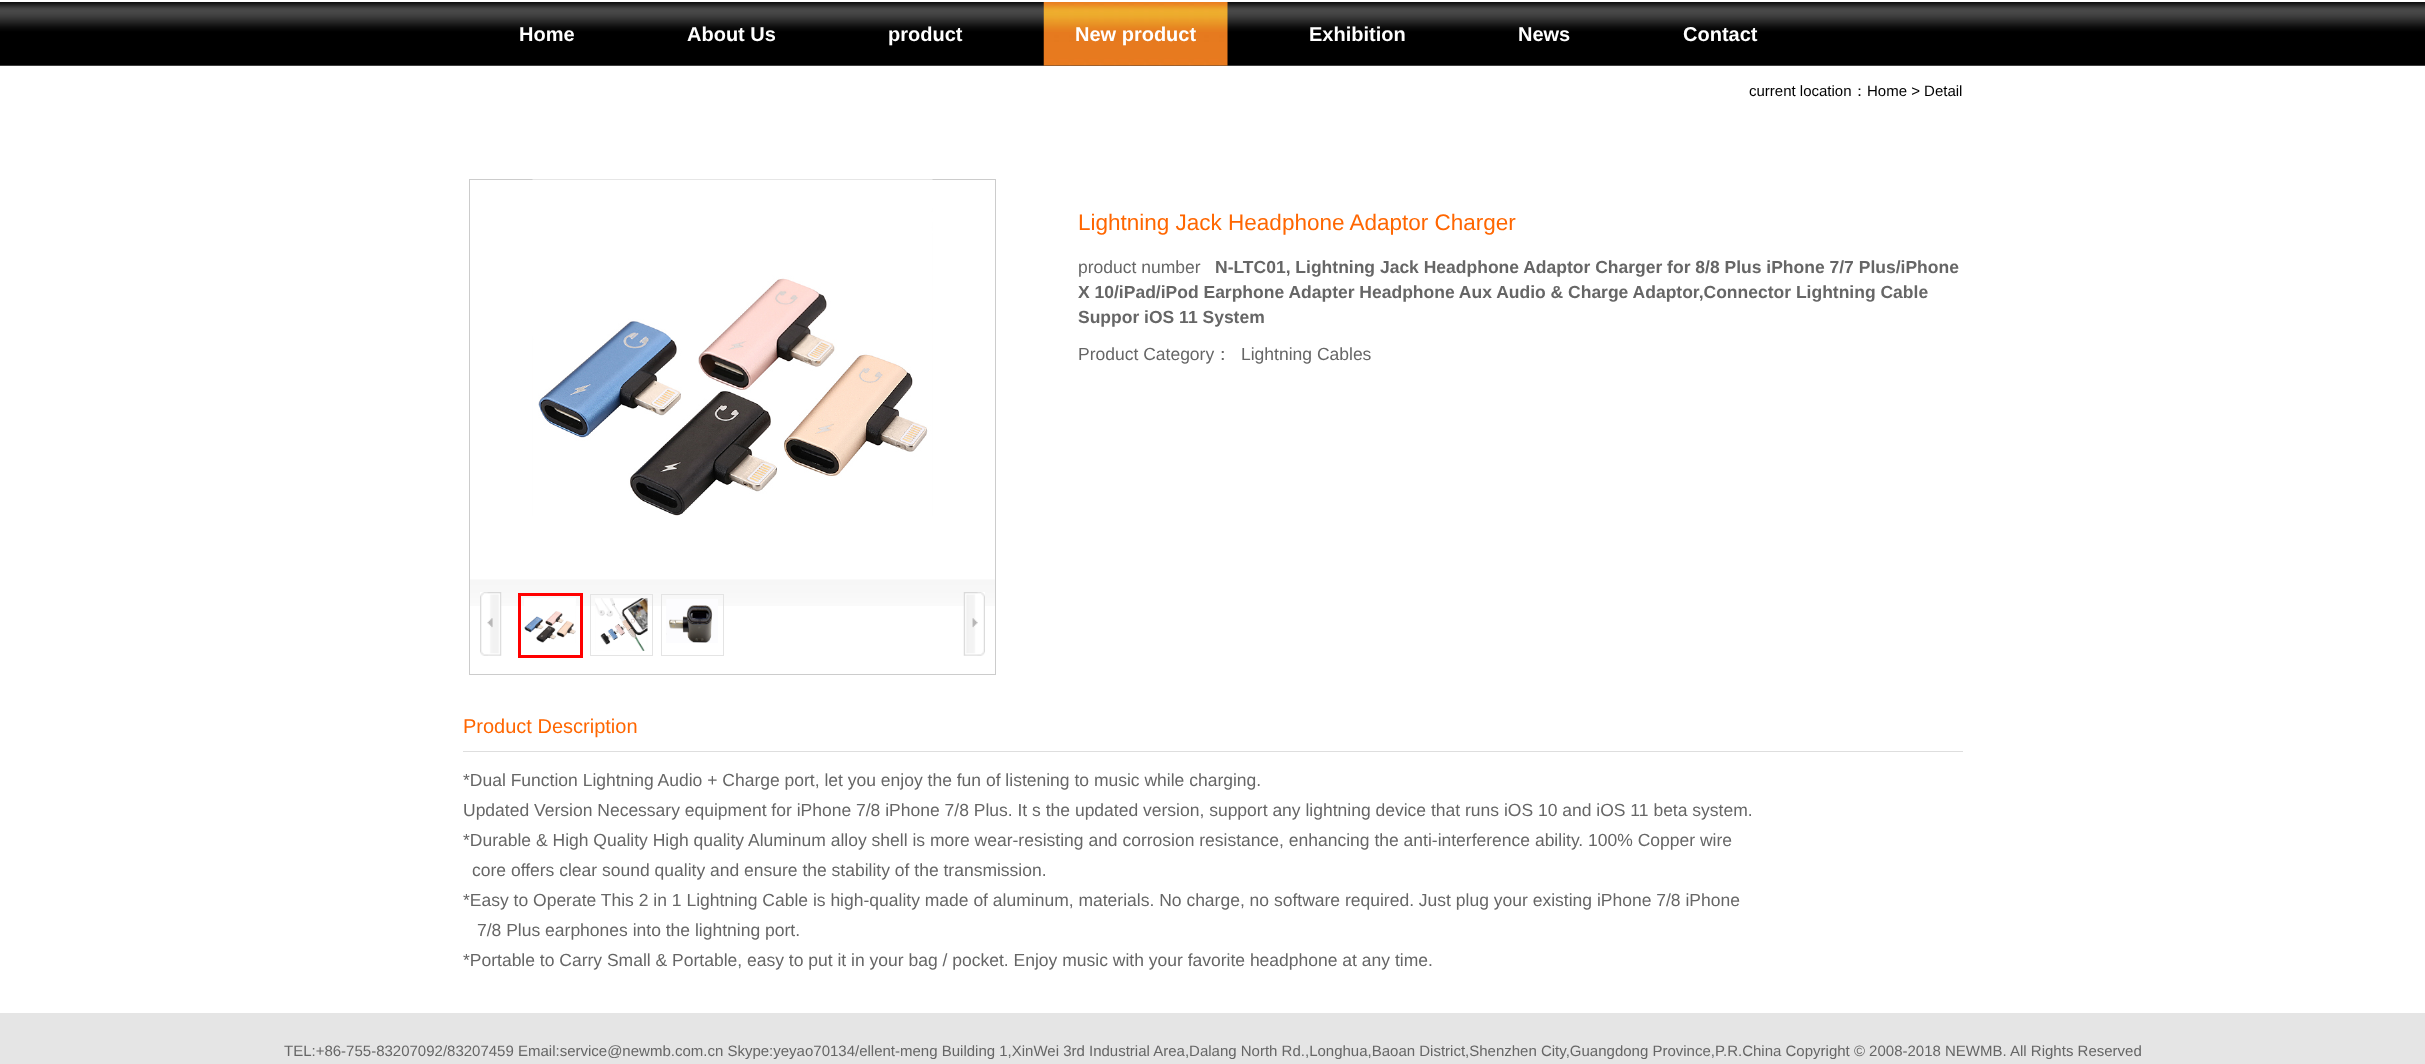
<svg xmlns="http://www.w3.org/2000/svg" width="2425" height="1064">
<rect width="100%" height="100%" fill="#fff"/>
<image x="0" y="2" width="2425" height="64" href="media/1.png"/>
<text x="519" y="41" style="font-family:Liberation Sans;font-size:20px;font-weight:bold;fill:#fff">Home</text>
<text x="687" y="41" style="font-family:Liberation Sans;font-size:20px;font-weight:bold;fill:#fff">About Us</text>
<text x="888" y="41" style="font-family:Liberation Sans;font-size:20px;font-weight:bold;fill:#fff">product</text>
<image x="1043" y="2" width="185" height="64" href="media/2.png"/>
<text x="1075" y="41" style="font-family:Liberation Sans;font-size:20px;font-weight:bold;fill:#fff">New product</text>
<text x="1309" y="41" style="font-family:Liberation Sans;font-size:20px;font-weight:bold;fill:#fff">Exhibition</text>
<text x="1518" y="41" style="font-family:Liberation Sans;font-size:20px;font-weight:bold;fill:#fff">News</text>
<text x="1683" y="41" style="font-family:Liberation Sans;font-size:20px;font-weight:bold;fill:#fff">Contact</text>
<text x="1749" y="96" style="font-family:Liberation Sans;font-size:15px;fill:#000">current location</text>
<text x="1852" y="96" style="font-family:WenQuanYi Zen Hei;font-size:15px;font-weight:500;fill:#000">：</text>
<text x="1867" y="96" style="font-family:Liberation Sans;font-size:15px;fill:#000">Home &gt; Detail</text>
<rect x="469.5" y="179.5" width="526" height="495" fill="none" stroke="#ccc"/>
<image x="532" y="179" width="401" height="337" href="media/3.png"/>
<image x="470" y="579" width="525" height="27" href="media/4.png"/>
<image x="480" y="592" width="22" height="64" href="media/5.png"/>
<rect x="519.5" y="594.5" width="62" height="62" fill="none" stroke="#f00" stroke-width="3"/>
<image x="524" y="598" width="52" height="45" href="media/6.png"/>
<rect x="590.5" y="594.5" width="62" height="61" fill="none" stroke="#e4e4e4"/>
<image x="595" y="598" width="53" height="53" href="media/7.png"/>
<rect x="661.5" y="594.5" width="62" height="61" fill="none" stroke="#e4e4e4"/>
<image x="666" y="599" width="52" height="44" href="media/8.png"/>
<image x="963" y="592" width="22" height="64" href="media/9.png"/>
<text x="1078" y="230" style="font-family:Liberation Sans;font-size:22.5px;fill:#f60">Lightning Jack Headphone Adaptor Charger</text>
<text x="1078" y="273" style="font-family:Liberation Sans;font-size:17.5px;fill:#666">product number</text>
<text x="1215" y="273" style="font-family:Liberation Sans;font-size:17.5px;font-weight:bold;fill:#666">N-LTC01, Lightning Jack Headphone Adaptor Charger for 8/8 Plus iPhone 7/7 Plus/iPhone</text>
<text x="1078" y="298" style="font-family:Liberation Sans;font-size:17.5px;font-weight:bold;fill:#666">X 10/iPad/iPod Earphone Adapter Headphone Aux Audio &amp; Charge Adaptor,Connector Lightning Cable</text>
<text x="1078" y="323" style="font-family:Liberation Sans;font-size:17.5px;font-weight:bold;fill:#666">Suppor iOS 11 System</text>
<text x="1078" y="360" style="font-family:Liberation Sans;font-size:17.5px;fill:#666">Product Category</text>
<text x="1214" y="360" style="font-family:WenQuanYi Zen Hei;font-size:17.5px;font-weight:500;fill:#666">：</text>
<text x="1241" y="360" style="font-family:Liberation Sans;font-size:17.5px;fill:#666">Lightning Cables</text>
<rect x="463" y="751" width="1500" height="1" fill="#dedede"/>
<text x="463" y="733" style="font-family:Liberation Sans;font-size:20px;fill:#f60">Product Description</text>
<text x="463" y="786" style="font-family:Liberation Sans;font-size:17.5px;fill:#666">*Dual Function Lightning Audio + Charge port, let you enjoy the fun of listening to music while charging.</text>
<text x="463" y="816" style="font-family:Liberation Sans;font-size:17.5px;fill:#666">Updated Version Necessary equipment for iPhone 7/8 iPhone 7/8 Plus. It s the updated version, support any lightning device that runs iOS 10 and iOS 11 beta system.</text>
<text x="463" y="846" style="font-family:Liberation Sans;font-size:17.5px;fill:#666">*Durable &amp; High Quality High quality Aluminum alloy shell is more wear-resisting and corrosion resistance, enhancing the anti-interference ability. 100% Copper wire</text>
<text x="472" y="876" style="font-family:Liberation Sans;font-size:17.5px;fill:#666">core offers clear sound quality and ensure the stability of the transmission.</text>
<text x="463" y="906" style="font-family:Liberation Sans;font-size:17.5px;fill:#666">*Easy to Operate This 2 in 1 Lightning Cable is high-quality made of aluminum, materials. No charge, no software required. Just plug your existing iPhone 7/8 iPhone</text>
<text x="477" y="936" style="font-family:Liberation Sans;font-size:17.5px;fill:#666">7/8 Plus earphones into the lightning port.</text>
<text x="463" y="966" style="font-family:Liberation Sans;font-size:17.5px;fill:#666">*Portable to Carry Small &amp; Portable, easy to put it in your bag / pocket. Enjoy music with your favorite headphone at any time.</text>
<rect y="1013" width="2425" height="51" fill="#e5e5e5"/>
<text x="284" y="1056" style="font-family:Liberation Sans;font-size:15px;fill:#666">TEL:+86-755-83207092/83207459 Email:service@newmb.com.cn Skype:yeyao70134/ellent-meng Building 1,XinWei 3rd Industrial Area,Dalang North Rd.,Longhua,Baoan District,Shenzhen City,Guangdong Province,P.R.China Copyright © 2008-2018 NEWMB. All Rights Reserved</text>
</svg>
